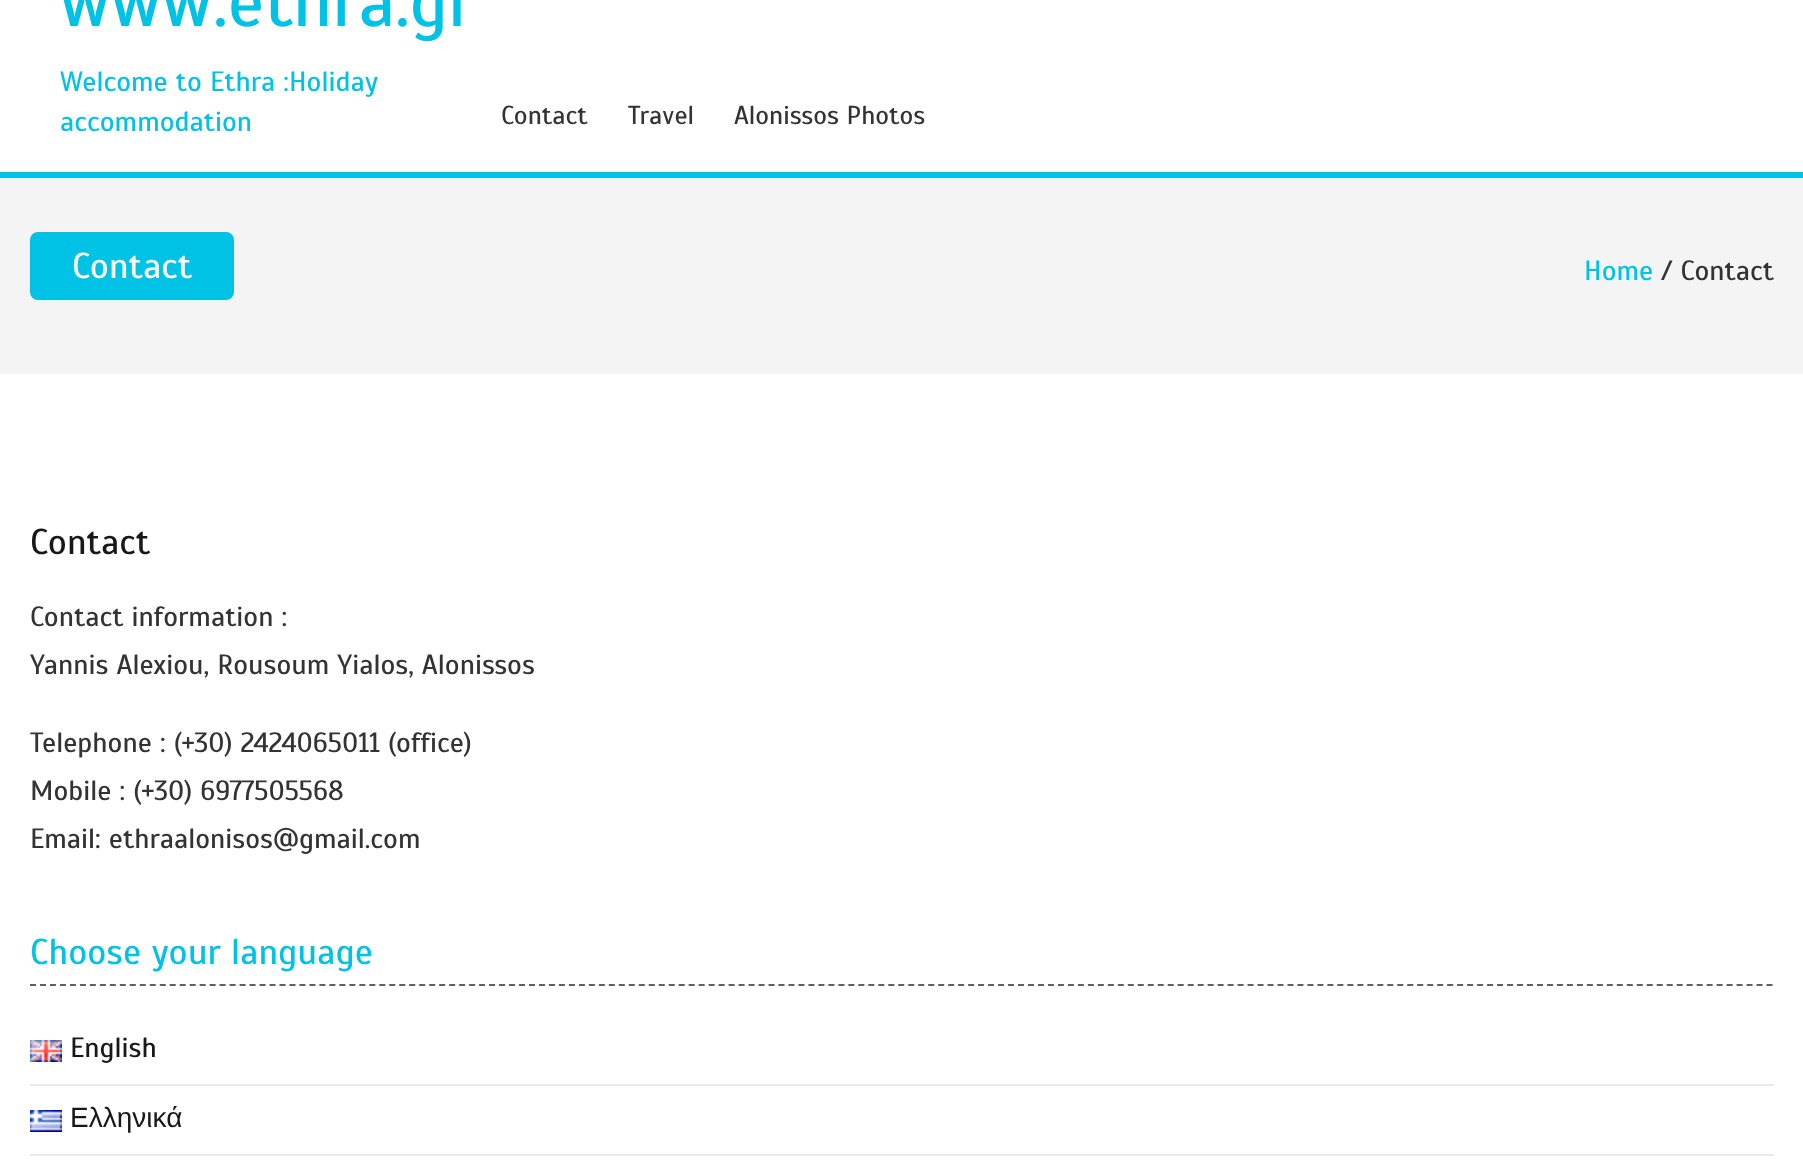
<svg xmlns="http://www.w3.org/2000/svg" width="1803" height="1170">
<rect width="100%" height="100%" fill="#fff"/>
<text x="60" y="26" style="font-family:Scada;font-size:72px;fill:#00c2e5">www.ethra.gr</text>
<text x="60" y="91" style="font-family:Scada;font-size:28px;fill:#00c2e5">Welcome to Ethra :Holiday</text>
<text x="60" y="131" style="font-family:Scada;font-size:28px;fill:#00c2e5">accommodation</text>
<text x="501" y="124" style="font-family:Scada;font-size:26px;fill:#333">Contact</text>
<text x="628" y="124" style="font-family:Scada;font-size:26px;fill:#333">Travel</text>
<text x="734" y="124" style="font-family:Scada;font-size:26px;fill:#333">Alonissos Photos</text>
<rect y="178" width="1803" height="196" fill="#f4f4f4"/>
<rect y="172" width="1803" height="6" fill="#00c2e5"/>
<rect x="30" y="232" width="204" height="68" rx="8" fill="#00c2e5"/>
<text x="72" y="278" style="font-family:Scada;font-size:36px;fill:#feffff">Contact</text>
<text x="1584" y="280" style="font-family:Scada;font-size:28px;fill:#00c2e5">Home</text>
<text x="1661" y="280" style="font-family:Scada;font-size:28px;fill:#333">/ Contact</text>
<text x="30" y="554" style="font-family:Scada;font-size:36px;fill:#181818">Contact</text>
<text x="30" y="626" style="font-family:Scada;font-size:28px;fill:#333">Contact information :</text>
<text x="30" y="674" style="font-family:Scada;font-size:28px;fill:#333">Yannis Alexiou, Rousoum Yialos, Alonissos</text>
<text x="30" y="752" style="font-family:Scada;font-size:28px;fill:#333">Telephone : (+30) 2424065011 (office)</text>
<text x="30" y="800" style="font-family:Scada;font-size:28px;fill:#333">Mobile : (+30) 6977505568</text>
<text x="30" y="848" style="font-family:Scada;font-size:28px;fill:#333">Email: ethraalonisos@gmail.com</text>
<path d="M30 985h1744" fill="none" stroke="#606060" stroke-width="2" stroke-dasharray="6 3.98"/>
<text x="30" y="964" style="font-family:Scada;font-size:36px;fill:#00c2e5">Choose your language</text>
<rect x="30" y="1084" width="1744" height="2" fill="#e9e9e9"/>
<image x="30" y="1040" width="32" height="22" href="media/1.png"/>
<text x="70" y="1057" style="font-family:Scada;font-size:28px;fill:#181818">English</text>
<rect x="30" y="1154" width="1744" height="2" fill="#e9e9e9"/>
<image x="30" y="1110" width="32" height="22" href="media/2.png"/>
<text x="70" y="1127" style="font-family:Liberation Sans;font-size:28px;fill:#181818">Ελληνικά</text>
</svg>
